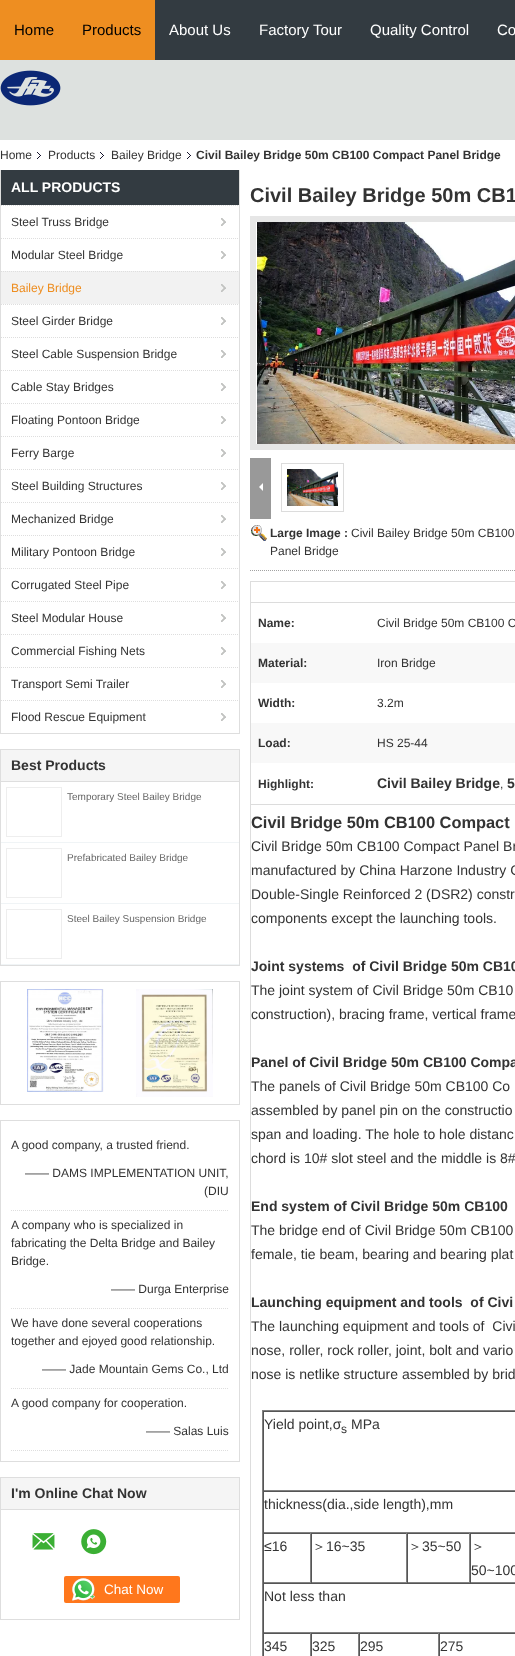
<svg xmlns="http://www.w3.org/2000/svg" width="515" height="1656">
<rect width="100%" height="100%" fill="#fff"/>
<rect x="155" width="360" height="60" fill="#333b41"/>
<rect width="155" height="60" fill="#ee8e21"/>
<text x="14" y="35" style="font-family:Liberation Sans;font-size:15px;fill:#000">Home</text>
<text x="82" y="35" style="font-family:Liberation Sans;font-size:15px;fill:#000">Products</text>
<text x="169" y="35" style="font-family:Liberation Sans;font-size:15px;fill:#fff">About Us</text>
<text x="259" y="35" style="font-family:Liberation Sans;font-size:15px;fill:#fff">Factory Tour</text>
<text x="370" y="35" style="font-family:Liberation Sans;font-size:15px;fill:#fff">Quality Control</text>
<text x="497" y="35" style="font-family:Liberation Sans;font-size:15px;fill:#fff">Co</text>
<rect y="60" width="515" height="80" fill="#dde1df"/>
<image x="0" y="70" width="61" height="36" href="media/1.png"/>
<text x="0" y="159" style="font-family:Liberation Sans;font-size:12px;fill:#333">Home</text>
<image x="37" y="152" width="4" height="7" href="media/2.png"/>
<text x="48" y="159" style="font-family:Liberation Sans;font-size:12px;fill:#333">Products</text>
<image x="100" y="152" width="4" height="7" href="media/2.png"/>
<text x="111" y="159" style="font-family:Liberation Sans;font-size:12px;fill:#333">Bailey Bridge</text>
<image x="187" y="152" width="4" height="7" href="media/2.png"/>
<text x="196" y="159" style="font-family:Liberation Sans;font-size:12px;font-weight:bold;fill:#333">Civil Bailey Bridge 50m CB100 Compact Panel Bridge</text>
<rect x="239" y="170" width="1" height="564" fill="#dedede"/>
<rect y="733" width="240" height="1" fill="#dedede"/>
<rect y="170" width="1" height="564" fill="#dedede"/>
<rect x="1" y="170" width="238" height="35" fill="#333b41"/>
<text x="11" y="192" style="font-family:Liberation Sans;font-size:14px;font-weight:bold;fill:#fff">ALL PRODUCTS</text>
<path d="M1 205.5h238" fill="none" stroke="#dedede" stroke-dasharray="1 1"/>
<text x="11" y="226" style="font-family:Liberation Sans;font-size:12px;fill:#333">Steel Truss Bridge</text>
<image x="221" y="218" width="5" height="8" href="media/3.png"/>
<path d="M1 238.5h238" fill="none" stroke="#dedede" stroke-dasharray="1 1"/>
<text x="11" y="259" style="font-family:Liberation Sans;font-size:12px;fill:#333">Modular Steel Bridge</text>
<image x="221" y="251" width="5" height="8" href="media/3.png"/>
<rect x="1" y="271" width="238" height="33" fill="#f2f2f2"/>
<path d="M1 271.5h238" fill="none" stroke="#dedede" stroke-dasharray="1 1"/>
<text x="11" y="292" style="font-family:Liberation Sans;font-size:12px;fill:#ee8e21">Bailey Bridge</text>
<image x="221" y="284" width="5" height="8" href="media/4.png"/>
<path d="M1 304.5h238" fill="none" stroke="#dedede" stroke-dasharray="1 1"/>
<text x="11" y="325" style="font-family:Liberation Sans;font-size:12px;fill:#333">Steel Girder Bridge</text>
<image x="221" y="317" width="5" height="8" href="media/3.png"/>
<path d="M1 337.5h238" fill="none" stroke="#dedede" stroke-dasharray="1 1"/>
<text x="11" y="358" style="font-family:Liberation Sans;font-size:12px;fill:#333">Steel Cable Suspension Bridge</text>
<image x="221" y="350" width="5" height="8" href="media/3.png"/>
<path d="M1 370.5h238" fill="none" stroke="#dedede" stroke-dasharray="1 1"/>
<text x="11" y="391" style="font-family:Liberation Sans;font-size:12px;fill:#333">Cable Stay Bridges</text>
<image x="221" y="383" width="5" height="8" href="media/3.png"/>
<path d="M1 403.5h238" fill="none" stroke="#dedede" stroke-dasharray="1 1"/>
<text x="11" y="424" style="font-family:Liberation Sans;font-size:12px;fill:#333">Floating Pontoon Bridge</text>
<image x="221" y="416" width="5" height="8" href="media/3.png"/>
<path d="M1 436.5h238" fill="none" stroke="#dedede" stroke-dasharray="1 1"/>
<text x="11" y="457" style="font-family:Liberation Sans;font-size:12px;fill:#333">Ferry Barge</text>
<image x="221" y="449" width="5" height="8" href="media/3.png"/>
<path d="M1 469.5h238" fill="none" stroke="#dedede" stroke-dasharray="1 1"/>
<text x="11" y="490" style="font-family:Liberation Sans;font-size:12px;fill:#333">Steel Building Structures</text>
<image x="221" y="482" width="5" height="8" href="media/3.png"/>
<path d="M1 502.5h238" fill="none" stroke="#dedede" stroke-dasharray="1 1"/>
<text x="11" y="523" style="font-family:Liberation Sans;font-size:12px;fill:#333">Mechanized Bridge</text>
<image x="221" y="515" width="5" height="8" href="media/3.png"/>
<path d="M1 535.5h238" fill="none" stroke="#dedede" stroke-dasharray="1 1"/>
<text x="11" y="556" style="font-family:Liberation Sans;font-size:12px;fill:#333">Military Pontoon Bridge</text>
<image x="221" y="548" width="5" height="8" href="media/3.png"/>
<path d="M1 568.5h238" fill="none" stroke="#dedede" stroke-dasharray="1 1"/>
<text x="11" y="589" style="font-family:Liberation Sans;font-size:12px;fill:#333">Corrugated Steel Pipe</text>
<image x="221" y="581" width="5" height="8" href="media/3.png"/>
<path d="M1 601.5h238" fill="none" stroke="#dedede" stroke-dasharray="1 1"/>
<text x="11" y="622" style="font-family:Liberation Sans;font-size:12px;fill:#333">Steel Modular House</text>
<image x="221" y="614" width="5" height="8" href="media/3.png"/>
<path d="M1 634.5h238" fill="none" stroke="#dedede" stroke-dasharray="1 1"/>
<text x="11" y="655" style="font-family:Liberation Sans;font-size:12px;fill:#333">Commercial Fishing Nets</text>
<image x="221" y="647" width="5" height="8" href="media/3.png"/>
<path d="M1 667.5h238" fill="none" stroke="#dedede" stroke-dasharray="1 1"/>
<text x="11" y="688" style="font-family:Liberation Sans;font-size:12px;fill:#333">Transport Semi Trailer</text>
<image x="221" y="680" width="5" height="8" href="media/3.png"/>
<path d="M1 700.5h238" fill="none" stroke="#dedede" stroke-dasharray="1 1"/>
<text x="11" y="721" style="font-family:Liberation Sans;font-size:12px;fill:#333">Flood Rescue Equipment</text>
<image x="221" y="713" width="5" height="8" href="media/3.png"/>
<rect x="0.5" y="749.5" width="239" height="216" fill="none" stroke="#dedede"/>
<rect x="1" y="750" width="238" height="31" fill="#f5f5f5"/>
<rect x="1" y="781" width="238" height="1" fill="#dedede"/>
<text x="11" y="770" style="font-family:Liberation Sans;font-size:14px;font-weight:bold;fill:#333">Best Products</text>
<rect x="1" y="842" width="238" height="1" fill="#f0f4f6"/>
<rect x="6.5" y="787.5" width="55" height="49" fill="none" stroke="#eee"/>
<text x="67" y="800" style="font-family:Liberation Sans;font-size:10px;fill:#666">Temporary Steel Bailey Bridge</text>
<rect x="1" y="903" width="238" height="1" fill="#f0f4f6"/>
<rect x="6.5" y="848.5" width="55" height="49" fill="none" stroke="#eee"/>
<text x="67" y="861" style="font-family:Liberation Sans;font-size:10px;fill:#666">Prefabricated Bailey Bridge</text>
<rect x="1" y="964" width="238" height="1" fill="#f0f4f6"/>
<rect x="6.5" y="909.5" width="55" height="49" fill="none" stroke="#eee"/>
<text x="67" y="922" style="font-family:Liberation Sans;font-size:10px;fill:#666">Steel Bailey Suspension Bridge</text>
<rect x="0.5" y="981.5" width="239" height="123" fill="none" stroke="#dedede"/>
<image x="27" y="989" width="77" height="103" href="media/5.png"/>
<image x="136" y="989" width="77" height="108" href="media/6.png"/>
<rect x="0.5" y="1120.5" width="239" height="341" fill="none" stroke="#dedede"/>
<path d="M11 1210.5h218" fill="none" stroke="#dedede" stroke-dasharray="1 1"/>
<text x="11" y="1149" style="font-family:Liberation Sans;font-size:12px;fill:#333">A good company, a trusted friend.</text>
<text x="25" y="1177" style="font-family:Liberation Sans;font-size:12px;fill:#333">—— DAMS IMPLEMENTATION UNIT,</text>
<text x="204" y="1195" style="font-family:Liberation Sans;font-size:12px;fill:#333">(DIU</text>
<path d="M11 1308.5h218" fill="none" stroke="#dedede" stroke-dasharray="1 1"/>
<text x="11" y="1229" style="font-family:Liberation Sans;font-size:12px;fill:#333">A company who is specialized in</text>
<text x="11" y="1247" style="font-family:Liberation Sans;font-size:12px;fill:#333">fabricating the Delta Bridge and Bailey</text>
<text x="11" y="1265" style="font-family:Liberation Sans;font-size:12px;fill:#333">Bridge.</text>
<text x="111" y="1293" style="font-family:Liberation Sans;font-size:12px;fill:#333">—— Durga Enterprise</text>
<path d="M11 1388.5h218" fill="none" stroke="#dedede" stroke-dasharray="1 1"/>
<text x="11" y="1327" style="font-family:Liberation Sans;font-size:12px;fill:#333">We have done several cooperations</text>
<text x="11" y="1345" style="font-family:Liberation Sans;font-size:12px;fill:#333">together and ejoyed good relationship.</text>
<text x="42" y="1373" style="font-family:Liberation Sans;font-size:12px;fill:#333">—— Jade Mountain Gems Co., Ltd</text>
<path d="M11 1450.5h218" fill="none" stroke="#dedede" stroke-dasharray="1 1"/>
<text x="11" y="1407" style="font-family:Liberation Sans;font-size:12px;fill:#333">A good company for cooperation.</text>
<text x="146" y="1435" style="font-family:Liberation Sans;font-size:12px;fill:#333">—— Salas Luis</text>
<rect x="0.5" y="1477.5" width="239" height="142" fill="none" stroke="#dedede"/>
<rect x="1" y="1478" width="238" height="31" fill="#f5f5f5"/>
<rect x="1" y="1509" width="238" height="1" fill="#dedede"/>
<text x="11" y="1498" style="font-family:Liberation Sans;font-size:14px;font-weight:bold;fill:#333">I'm Online Chat Now</text>
<image x="32" y="1533" width="23" height="17" href="media/7.png"/>
<image x="81" y="1529" width="26" height="26" href="media/8.png"/>
<rect x="64" y="1576" width="116" height="27" rx="2" fill="#ff771c"/>
<image x="72" y="1578" width="23" height="23" href="media/9.png"/>
<text x="104" y="1594" style="font-family:Liberation Sans;font-size:13.5px;fill:#fff">Chat Now</text>
<text x="250" y="202" style="font-family:Liberation Sans;font-size:20px;font-weight:bold;fill:#333">Civil Bailey Bridge 50m CB1</text>
<path d="M250 570.5h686" fill="none" stroke="#a2a2a2" stroke-dasharray="1 1"/>
<rect x="253" y="219" width="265" height="228" fill="none" stroke="#e6e6e6" stroke-width="6"/>
<image x="257" y="222" width="258" height="222" href="media/10.png"/>
<rect x="250" y="458" width="21" height="61" fill="#999"/>
<path d="M263 483v8l-4-4z" fill="#fff"/>
<rect x="281.5" y="463.5" width="62" height="48" fill="none" stroke="#dcdcdc"/>
<image x="287" y="469" width="51" height="37" href="media/11.png"/>
<image x="251" y="525" width="16" height="16" href="media/12.png"/>
<text x="270" y="537" style="font-family:Liberation Sans;font-size:12px;font-weight:bold;fill:#333">Large Image :</text>
<text x="351" y="537" style="font-family:Liberation Sans;font-size:12px;fill:#333">Civil Bailey Bridge 50m CB100</text>
<text x="270" y="555" style="font-family:Liberation Sans;font-size:12px;fill:#333">Panel Bridge</text>
<rect x="250.5" y="581.5" width="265" height="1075" fill="none" stroke="#ddd"/>
<rect x="251" y="602" width="264" height="1" fill="#dcdcdc"/>
<rect x="251" y="804" width="264" height="1" fill="#dcdcdc"/>
<text x="258" y="627" style="font-family:Liberation Sans;font-size:12px;font-weight:bold;fill:#333">Name:</text>
<text x="377" y="627" style="font-family:Liberation Sans;font-size:12px;fill:#333">Civil Bridge 50m CB100 C</text>
<rect x="251" y="643" width="264" height="40" fill="#f8f8f8"/>
<text x="258" y="667" style="font-family:Liberation Sans;font-size:12px;font-weight:bold;fill:#333">Material:</text>
<text x="377" y="667" style="font-family:Liberation Sans;font-size:12px;fill:#333">Iron Bridge</text>
<text x="258" y="707" style="font-family:Liberation Sans;font-size:12px;font-weight:bold;fill:#333">Width:</text>
<text x="377" y="707" style="font-family:Liberation Sans;font-size:12px;fill:#333">3.2m</text>
<rect x="251" y="723" width="264" height="40" fill="#f8f8f8"/>
<text x="258" y="747" style="font-family:Liberation Sans;font-size:12px;font-weight:bold;fill:#333">Load:</text>
<text x="377" y="747" style="font-family:Liberation Sans;font-size:12px;fill:#333">HS 25-44</text>
<text x="258" y="788" style="font-family:Liberation Sans;font-size:12px;font-weight:bold;fill:#333">Highlight:</text>
<text x="377" y="788" style="font-family:Liberation Sans;font-size:14px;font-weight:bold;fill:#333">Civil Bailey Bridge</text>
<text x="500" y="788" style="font-family:Liberation Sans;font-size:12px;fill:#333">,</text>
<text x="507" y="788" style="font-family:Liberation Sans;font-size:14px;font-weight:bold;fill:#333">5</text>
<text x="251" y="828" style="font-family:Liberation Sans;font-size:16.4px;font-weight:bold;fill:#333">Civil Bridge 50m CB100 Compact</text>
<text x="251" y="851" style="font-family:Liberation Sans;font-size:14px;fill:#333">Civil Bridge 50m CB100 Compact Panel Br</text>
<text x="251" y="875" style="font-family:Liberation Sans;font-size:14px;fill:#333">manufactured by China Harzone Industry C</text>
<text x="251" y="899" style="font-family:Liberation Sans;font-size:14px;fill:#333">Double-Single Reinforced 2 (DSR2) constr</text>
<text x="251" y="923" style="font-family:Liberation Sans;font-size:14px;fill:#333">components except the launching tools.</text>
<text x="251" y="971" style="font-family:Liberation Sans;font-size:14px;font-weight:bold;fill:#333" xml:space="preserve">Joint systems  of Civil Bridge 50m CB10</text>
<text x="251" y="995" style="font-family:Liberation Sans;font-size:14px;fill:#333">The joint system of Civil Bridge 50m CB10</text>
<text x="251" y="1019" style="font-family:Liberation Sans;font-size:14px;fill:#333">construction), bracing frame, vertical frame</text>
<text x="251" y="1067" style="font-family:Liberation Sans;font-size:14px;font-weight:bold;fill:#333">Panel of Civil Bridge 50m CB100 Compa</text>
<text x="251" y="1091" style="font-family:Liberation Sans;font-size:14px;fill:#333">The panels of Civil Bridge 50m CB100 Co</text>
<text x="251" y="1115" style="font-family:Liberation Sans;font-size:14px;fill:#333">assembled by panel pin on the constructio</text>
<text x="251" y="1139" style="font-family:Liberation Sans;font-size:14px;fill:#333">span and loading. The hole to hole distanc</text>
<text x="251" y="1163" style="font-family:Liberation Sans;font-size:14px;fill:#333">chord is 10# slot steel and the middle is 8#</text>
<text x="251" y="1211" style="font-family:Liberation Sans;font-size:14px;font-weight:bold;fill:#333">End system of Civil Bridge 50m CB100</text>
<text x="251" y="1235" style="font-family:Liberation Sans;font-size:14px;fill:#333">The bridge end of Civil Bridge 50m CB100</text>
<text x="251" y="1259" style="font-family:Liberation Sans;font-size:14px;fill:#333">female, tie beam, bearing and bearing plat</text>
<text x="251" y="1307" style="font-family:Liberation Sans;font-size:14px;font-weight:bold;fill:#333" xml:space="preserve">Launching equipment and tools  of Civi</text>
<text x="251" y="1331" style="font-family:Liberation Sans;font-size:14px;fill:#333" xml:space="preserve">The launching equipment and tools of  Civi</text>
<text x="251" y="1355" style="font-family:Liberation Sans;font-size:14px;fill:#333">nose, roller, rock roller, joint, bolt and vario</text>
<text x="251" y="1379" style="font-family:Liberation Sans;font-size:14px;fill:#333">nose is netlike structure assembled by brid</text>
<rect x="262" y="1410" width="253" height="1" fill="#808080"/>
<rect x="262" y="1410" width="1" height="246" fill="#808080"/>
<rect x="263" y="1411" width="252" height="1" fill="#555"/>
<rect x="263" y="1490" width="252" height="1" fill="#808080"/>
<rect x="263" y="1411" width="1" height="80" fill="#555"/>
<text x="264" y="1429" style="font-family:Liberation Sans;font-size:14px;fill:#333">Yield point,σ</text>
<text x="341" y="1433" style="font-family:Liberation Sans;font-size:12px;fill:#333">s</text>
<text x="351" y="1429" style="font-family:Liberation Sans;font-size:14px;fill:#333">MPa</text>
<rect x="263" y="1491" width="252" height="1" fill="#555"/>
<rect x="263" y="1532" width="252" height="1" fill="#808080"/>
<rect x="263" y="1491" width="1" height="42" fill="#555"/>
<text x="264" y="1509" style="font-family:Liberation Sans;font-size:14px;fill:#333">thickness(dia.,side length),mm</text>
<rect x="263" y="1533" width="252" height="1" fill="#555"/>
<rect x="310" y="1533" width="1" height="50" fill="#808080"/>
<rect x="263" y="1582" width="48" height="1" fill="#808080"/>
<rect x="263" y="1533" width="1" height="50" fill="#555"/>
<text x="264" y="1551" style="font-family:Liberation Sans;font-size:14px;fill:#333">≤16</text>
<rect x="406" y="1533" width="1" height="50" fill="#808080"/>
<rect x="311" y="1582" width="96" height="1" fill="#808080"/>
<rect x="311" y="1533" width="1" height="50" fill="#555"/>
<text x="312" y="1551" style="font-family:WenQuanYi Zen Hei;font-size:14px;font-weight:500;fill:#333">＞</text>
<text x="326" y="1551" style="font-family:Liberation Sans;font-size:14px;fill:#333">16~35</text>
<rect x="469" y="1533" width="1" height="50" fill="#808080"/>
<rect x="407" y="1582" width="108" height="1" fill="#808080"/>
<rect x="407" y="1533" width="1" height="50" fill="#555"/>
<text x="408" y="1551" style="font-family:WenQuanYi Zen Hei;font-size:14px;font-weight:500;fill:#333">＞</text>
<text x="422" y="1551" style="font-family:Liberation Sans;font-size:14px;fill:#333">35~50</text>
<rect x="470" y="1533" width="1" height="50" fill="#555"/>
<text x="471" y="1551" style="font-family:WenQuanYi Zen Hei;font-size:14px;font-weight:500;fill:#333">＞</text>
<text x="471" y="1575" style="font-family:Liberation Sans;font-size:14px;fill:#333">50~100</text>
<rect x="263" y="1583" width="252" height="1" fill="#555"/>
<rect x="263" y="1632" width="252" height="1" fill="#808080"/>
<rect x="263" y="1583" width="1" height="50" fill="#555"/>
<text x="264" y="1601" style="font-family:Liberation Sans;font-size:14px;fill:#333">Not less than</text>
<rect x="263" y="1633" width="252" height="1" fill="#555"/>
<rect x="310" y="1633" width="1" height="23" fill="#808080"/>
<rect x="263" y="1633" width="1" height="23" fill="#555"/>
<text x="264" y="1651" style="font-family:Liberation Sans;font-size:14px;fill:#333">345</text>
<rect x="358" y="1633" width="1" height="23" fill="#808080"/>
<rect x="311" y="1633" width="1" height="23" fill="#555"/>
<text x="312" y="1651" style="font-family:Liberation Sans;font-size:14px;fill:#333">325</text>
<rect x="438" y="1633" width="1" height="23" fill="#808080"/>
<rect x="359" y="1633" width="1" height="23" fill="#555"/>
<text x="360" y="1651" style="font-family:Liberation Sans;font-size:14px;fill:#333">295</text>
<rect x="439" y="1633" width="1" height="23" fill="#555"/>
<text x="440" y="1651" style="font-family:Liberation Sans;font-size:14px;fill:#333">275</text>
</svg>
